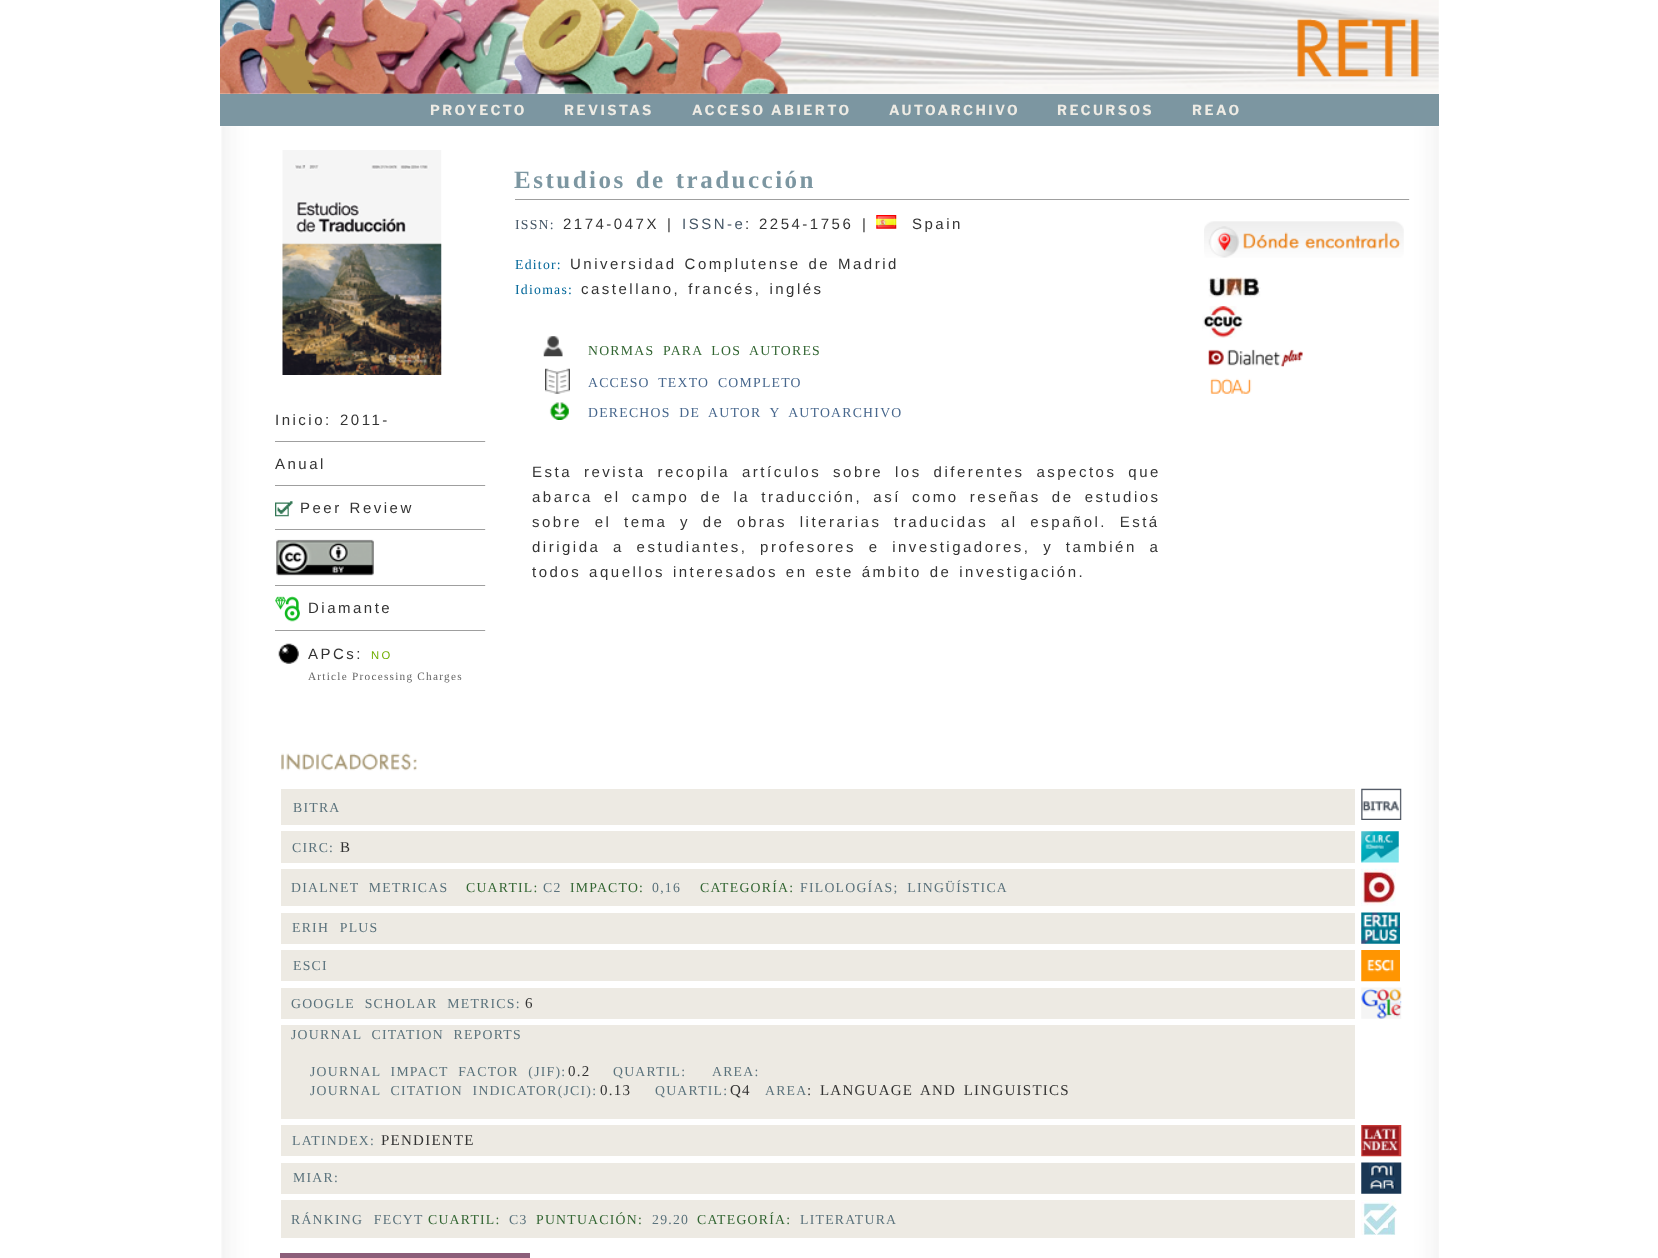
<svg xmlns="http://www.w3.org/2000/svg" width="1658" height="1258">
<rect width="100%" height="100%" fill="#fff"/>
<image x="220" y="0" width="1219" height="94" href="media/1.png"/>
<rect x="220" y="94" width="1219" height="32" fill="#7c96a1"/>
<text x="430" y="115" style="font-family:Libre Franklin;font-size:13.75px;font-weight:bold;letter-spacing:2.5px;fill:#eeebe4">PROYECTO</text>
<text x="564" y="115" style="font-family:Libre Franklin;font-size:13.75px;font-weight:bold;letter-spacing:2.5px;fill:#eeebe4">REVISTAS</text>
<text x="692" y="115" style="font-family:Libre Franklin;font-size:13.75px;font-weight:bold;letter-spacing:2.5px;fill:#eeebe4">ACCESO ABIERTO</text>
<text x="889" y="115" style="font-family:Libre Franklin;font-size:13.75px;font-weight:bold;letter-spacing:2.5px;fill:#eeebe4">AUTOARCHIVO</text>
<text x="1057" y="115" style="font-family:Libre Franklin;font-size:13.75px;font-weight:bold;letter-spacing:2.5px;fill:#eeebe4">RECURSOS</text>
<text x="1192" y="115" style="font-family:Libre Franklin;font-size:13.75px;font-weight:bold;letter-spacing:2.5px;fill:#eeebe4">REAO</text>
<image x="221" y="126" width="1218" height="1132" href="media/2.png"/>
<image x="282" y="150" width="160" height="225" href="media/3.png"/>
<text x="275" y="425" style="font-family:Liberation Sans;font-size:15px;letter-spacing:2.5px;fill:#333">Inicio:</text>
<text x="340" y="425" style="font-family:Liberation Sans;font-size:15px;letter-spacing:2.5px;fill:#333">2011-</text>
<rect x="275" y="441" width="211" height="1" fill="#9f9f9f"/>
<rect x="485" y="441" width="1" height="1" fill="#eee"/>
<text x="275" y="469" style="font-family:Liberation Sans;font-size:15px;letter-spacing:2.5px;fill:#333">Anual</text>
<rect x="275" y="485" width="211" height="1" fill="#9f9f9f"/>
<rect x="485" y="485" width="1" height="1" fill="#eee"/>
<image x="275" y="501" width="18" height="16" href="media/4.png"/>
<text x="300" y="513" word-spacing="1.25" style="font-family:Liberation Sans;font-size:15px;letter-spacing:2.5px;fill:#333">Peer Review</text>
<rect x="275" y="529" width="211" height="1" fill="#9f9f9f"/>
<rect x="485" y="529" width="1" height="1" fill="#eee"/>
<image x="276" y="539" width="98" height="37" href="media/5.png"/>
<rect x="275" y="585" width="211" height="1" fill="#9f9f9f"/>
<rect x="485" y="585" width="1" height="1" fill="#eee"/>
<image x="275" y="596" width="25" height="26" href="media/6.png"/>
<text x="308" y="613" style="font-family:Liberation Sans;font-size:15px;letter-spacing:2.5px;fill:#333">Diamante</text>
<rect x="275" y="630" width="211" height="1" fill="#9f9f9f"/>
<rect x="485" y="630" width="1" height="1" fill="#eee"/>
<image x="278" y="643" width="21" height="21" href="media/7.png"/>
<text x="308" y="659" style="font-family:Liberation Sans;font-size:15px;letter-spacing:2.5px;fill:#333">APCs:</text>
<text x="371" y="659" style="font-family:Liberation Sans;font-size:11.25px;letter-spacing:2.5px;fill:#70ae01">NO</text>
<text x="308" y="680" style="font-family:Liberation Serif;font-size:11.25px;letter-spacing:1.25px;fill:#666">Article Processing Charges</text>
<text x="514" y="188" word-spacing="1.25" style="font-family:Liberation Serif;font-size:25px;font-weight:bold;letter-spacing:2.5px;fill:#7c96a1">Estudios de traducción</text>
<rect x="515" y="199" width="895" height="1" fill="#9f9f9f"/>
<rect x="1409" y="199" width="1" height="1" fill="#eee"/>
<text x="515" y="229" style="font-family:Liberation Serif;font-size:13.75px;letter-spacing:1.25px;fill:#465767">ISSN:</text>
<text x="563" y="229" style="font-family:Liberation Sans;font-size:15px;letter-spacing:2.5px;fill:#333">2174-047X</text>
<text x="667" y="229" style="font-family:Liberation Sans;font-size:15px;letter-spacing:2.5px;fill:#333">|</text>
<text x="682" y="229" style="font-family:Liberation Sans;font-size:15px;letter-spacing:2.5px;fill:#465767">ISSN-e</text>
<text x="745" y="229" style="font-family:Liberation Sans;font-size:15px;letter-spacing:2.5px;fill:#333">:</text>
<text x="759" y="229" style="font-family:Liberation Sans;font-size:15px;letter-spacing:2.5px;fill:#333">2254-1756</text>
<text x="862" y="229" style="font-family:Liberation Sans;font-size:15px;letter-spacing:2.5px;fill:#333">|</text>
<image x="876" y="215" width="21" height="14" href="media/8.png"/>
<text x="912" y="229" style="font-family:Liberation Sans;font-size:15px;letter-spacing:2.5px;fill:#333">Spain</text>
<text x="515" y="269" style="font-family:Liberation Serif;font-size:13.75px;letter-spacing:1.25px;fill:#069">Editor:</text>
<text x="570" y="269" word-spacing="1.25" style="font-family:Liberation Sans;font-size:15px;letter-spacing:2.5px;fill:#333">Universidad Complutense de Madrid</text>
<text x="515" y="294" style="font-family:Liberation Serif;font-size:13.75px;letter-spacing:1.25px;fill:#069">Idiomas:</text>
<text x="581" y="294" word-spacing="1.25" style="font-family:Liberation Sans;font-size:15px;letter-spacing:2.5px;fill:#333">castellano, francés, inglés</text>
<image x="543" y="336" width="20" height="21" href="media/9.png"/>
<text x="588" y="355" word-spacing="4" style="font-family:Liberation Serif;font-size:13.75px;letter-spacing:1.25px;fill:#363">NORMAS PARA LOS AUTORES</text>
<image x="545" y="368" width="25" height="26" href="media/10.png"/>
<text x="588" y="387" word-spacing="4" style="font-family:Liberation Serif;font-size:13.75px;letter-spacing:1.25px;fill:#47678d">ACCESO TEXTO COMPLETO</text>
<image x="549" y="402" width="20" height="18" href="media/11.png"/>
<text x="588" y="417" word-spacing="4" style="font-family:Liberation Serif;font-size:13.75px;letter-spacing:1.25px;fill:#47678d">DERECHOS DE AUTOR Y AUTOARCHIVO</text>
<text x="532" y="477" word-spacing="5.25" style="font-family:Liberation Sans;font-size:15px;letter-spacing:2.5px;fill:#333">Esta revista recopila artículos sobre los diferentes aspectos que</text>
<text x="532" y="502" word-spacing="4.5" style="font-family:Liberation Sans;font-size:15px;letter-spacing:2.5px;fill:#333">abarca el campo de la traducción, así como reseñas de estudios</text>
<text x="532" y="527" word-spacing="6" style="font-family:Liberation Sans;font-size:15px;letter-spacing:2.5px;fill:#333">sobre el tema y de obras literarias traducidas al español. Está</text>
<text x="532" y="552" word-spacing="6" style="font-family:Liberation Sans;font-size:15px;letter-spacing:2.5px;fill:#333">dirigida a estudiantes, profesores e investigadores, y también a</text>
<text x="532" y="577" word-spacing="1.25" style="font-family:Liberation Sans;font-size:15px;letter-spacing:2.5px;fill:#333">todos aquellos interesados en este ámbito de investigación.</text>
<image x="1204" y="221" width="200" height="37" href="media/12.png"/>
<image x="1208" y="277" width="53" height="21" href="media/13.png"/>
<image x="1202" y="306" width="41" height="32" href="media/14.png"/>
<image x="1208" y="349" width="95" height="18" href="media/15.png"/>
<image x="1210" y="378" width="42" height="16" href="media/16.png"/>
<image x="281" y="753" width="136" height="18" href="media/17.png"/>
<rect x="281" y="789" width="1074" height="36" fill="#edeae3"/>
<text x="293" y="812" style="font-family:Liberation Serif;font-size:13.75px;letter-spacing:1.25px;fill:#5a727c">BITRA</text>
<image x="1361" y="788" width="41" height="32" href="media/18.png"/>
<rect x="281" y="831" width="1074" height="32" fill="#edeae3"/>
<text x="292" y="852" style="font-family:Liberation Serif;font-size:13.75px;letter-spacing:1.25px;fill:#5a727c">CIRC:</text>
<text x="340" y="852" style="font-family:Liberation Serif;font-size:15px;letter-spacing:1.25px;fill:#333">B</text>
<image x="1361" y="831" width="38" height="32" href="media/19.png"/>
<rect x="281" y="869" width="1074" height="37" fill="#edeae3"/>
<text x="291" y="892" word-spacing="5" style="font-family:Liberation Serif;font-size:13.75px;letter-spacing:1.25px;fill:#5a727c">DIALNET METRICAS</text>
<text x="466" y="892" style="font-family:Liberation Serif;font-size:13.75px;letter-spacing:1.25px;fill:#363">CUARTIL:</text>
<text x="543" y="892" style="font-family:Liberation Serif;font-size:13.75px;letter-spacing:1.25px;fill:#5a727c">C2</text>
<text x="570" y="892" style="font-family:Liberation Serif;font-size:13.75px;letter-spacing:1.25px;fill:#363">IMPACTO:</text>
<text x="652" y="892" style="font-family:Liberation Serif;font-size:13.75px;letter-spacing:1.25px;fill:#5a727c">0,16</text>
<text x="700" y="892" style="font-family:Liberation Serif;font-size:13.75px;letter-spacing:1.25px;fill:#363">CATEGORÍA:</text>
<text x="800" y="892" word-spacing="4" style="font-family:Liberation Serif;font-size:13.75px;letter-spacing:1.25px;fill:#5a727c">FILOLOGÍAS; LINGÜÍSTICA</text>
<image x="1361" y="868" width="35" height="38" href="media/20.png"/>
<rect x="281" y="913" width="1074" height="31" fill="#edeae3"/>
<text x="292" y="932" word-spacing="6" style="font-family:Liberation Serif;font-size:13.75px;letter-spacing:1.25px;fill:#5a727c">ERIH PLUS</text>
<image x="1361" y="912" width="39" height="32" href="media/21.png"/>
<rect x="281" y="950" width="1074" height="31" fill="#edeae3"/>
<text x="293" y="970" style="font-family:Liberation Serif;font-size:13.75px;letter-spacing:1.25px;fill:#5a727c">ESCI</text>
<image x="1361" y="950" width="39" height="32" href="media/22.png"/>
<rect x="281" y="988" width="1074" height="31" fill="#edeae3"/>
<text x="291" y="1008" word-spacing="5" style="font-family:Liberation Serif;font-size:13.75px;letter-spacing:1.25px;fill:#5a727c">GOOGLE SCHOLAR METRICS:</text>
<text x="525" y="1008" style="font-family:Liberation Serif;font-size:15px;letter-spacing:1.25px;fill:#333">6</text>
<image x="1361" y="987" width="41" height="32" href="media/23.png"/>
<rect x="281" y="1025" width="1074" height="94" fill="#edeae3"/>
<text x="291" y="1039" word-spacing="5" style="font-family:Liberation Serif;font-size:13.75px;letter-spacing:1.25px;fill:#5a727c">JOURNAL CITATION REPORTS</text>
<text x="310" y="1076" word-spacing="5" style="font-family:Liberation Serif;font-size:13.75px;letter-spacing:1.25px;fill:#5a727c">JOURNAL IMPACT FACTOR (JIF):</text>
<text x="568" y="1076" style="font-family:Liberation Serif;font-size:15px;letter-spacing:1.25px;fill:#333">0.2</text>
<text x="613" y="1076" style="font-family:Liberation Serif;font-size:13.75px;letter-spacing:1.25px;fill:#5a727c">QUARTIL:</text>
<text x="712" y="1076" style="font-family:Liberation Serif;font-size:13.75px;letter-spacing:1.25px;fill:#5a727c">AREA:</text>
<text x="310" y="1095" word-spacing="5" style="font-family:Liberation Serif;font-size:13.75px;letter-spacing:1.25px;fill:#5a727c">JOURNAL CITATION INDICATOR(JCI):</text>
<text x="600" y="1095" style="font-family:Liberation Serif;font-size:15px;letter-spacing:1.25px;fill:#333">0.13</text>
<text x="655" y="1095" style="font-family:Liberation Serif;font-size:13.75px;letter-spacing:1.25px;fill:#5a727c">QUARTIL:</text>
<text x="730" y="1095" style="font-family:Liberation Serif;font-size:15px;letter-spacing:1.25px;fill:#333">Q4</text>
<text x="765" y="1095" style="font-family:Liberation Serif;font-size:13.75px;letter-spacing:1.25px;fill:#5a727c">AREA</text>
<text x="807" y="1095" word-spacing="2.5" style="font-family:Liberation Serif;font-size:15px;letter-spacing:1.25px;fill:#333">: LANGUAGE AND LINGUISTICS</text>
<rect x="281" y="1125" width="1074" height="31" fill="#edeae3"/>
<text x="292" y="1145" style="font-family:Liberation Serif;font-size:13.75px;letter-spacing:1.25px;fill:#5a727c">LATINDEX:</text>
<text x="381" y="1145" style="font-family:Liberation Serif;font-size:15px;letter-spacing:1.25px;fill:#333">PENDIENTE</text>
<image x="1361" y="1125" width="41" height="32" href="media/24.png"/>
<rect x="281" y="1163" width="1074" height="31" fill="#edeae3"/>
<text x="293" y="1182" style="font-family:Liberation Serif;font-size:13.75px;letter-spacing:1.25px;fill:#5a727c">MIAR:</text>
<image x="1361" y="1162" width="41" height="32" href="media/25.png"/>
<rect x="281" y="1200" width="1074" height="38" fill="#edeae3"/>
<text x="291" y="1224" word-spacing="6" style="font-family:Liberation Serif;font-size:13.75px;letter-spacing:1.25px;fill:#5a727c">RÁNKING FECYT</text>
<text x="428" y="1224" style="font-family:Liberation Serif;font-size:13.75px;letter-spacing:1.25px;fill:#363">CUARTIL:</text>
<text x="509" y="1224" style="font-family:Liberation Serif;font-size:13.75px;letter-spacing:1.25px;fill:#5a727c">C3</text>
<text x="536" y="1224" style="font-family:Liberation Serif;font-size:13.75px;letter-spacing:1.25px;fill:#363">PUNTUACIÓN:</text>
<text x="652" y="1224" style="font-family:Liberation Serif;font-size:13.75px;letter-spacing:1.25px;fill:#5a727c">29.20</text>
<text x="697" y="1224" style="font-family:Liberation Serif;font-size:13.75px;letter-spacing:1.25px;fill:#363">CATEGORÍA:</text>
<text x="800" y="1224" style="font-family:Liberation Serif;font-size:13.75px;letter-spacing:1.25px;fill:#5a727c">LITERATURA</text>
<image x="1361" y="1200" width="36" height="35" href="media/26.png"/>
<rect x="280" y="1253" width="250" height="5" fill="#8c5e7a"/>
</svg>
